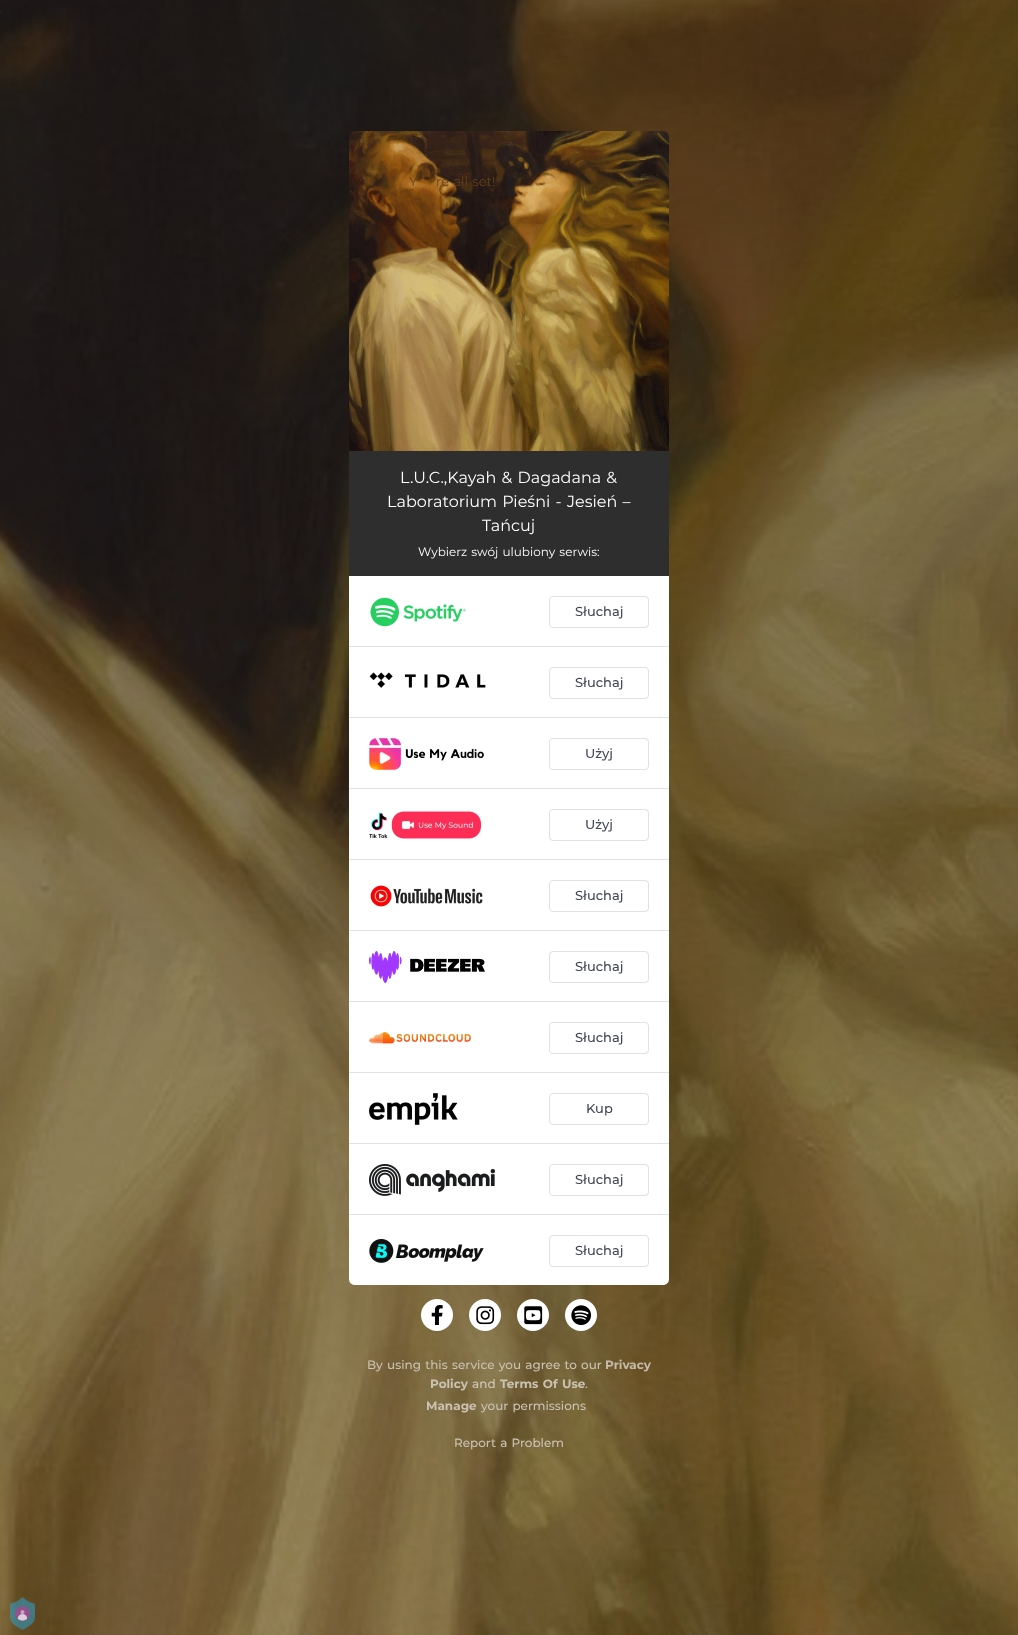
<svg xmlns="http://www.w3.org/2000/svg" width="1018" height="1635">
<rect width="100%" height="100%" fill="#fff"/>
<image x="0" y="0" width="1018" height="1635" href="media/1.png"/>
<image x="349" y="131" width="320" height="320" href="media/2.png"/>
<text x="409" y="186" word-spacing="1" style="font-family:Montserrat;font-size:13px;fill:#63401b">Y</text>
<text x="436" y="186" word-spacing="1" style="font-family:Montserrat;font-size:13px;fill:#63401b">re all set!</text>
<rect x="349" y="451" width="320" height="125" fill="#2e2e2e"/>
<text x="400" y="483" word-spacing="1" style="font-family:Montserrat;font-size:16px;fill:#fff">L.U.C.,Kayah &amp; Dagadana &amp;</text>
<text x="387" y="507" word-spacing="1" style="font-family:Montserrat;font-size:16px;fill:#fff">Laboratorium Pieśni -</text>
<text x="567" y="507" word-spacing="1" style="font-family:Montserrat;font-size:16px;fill:#fff">Jesień –</text>
<text x="482" y="531" style="font-family:Montserrat;font-size:16px;fill:#fff">Tańcuj</text>
<text x="418" y="556" word-spacing="1" style="font-family:Montserrat;font-size:12px;fill:#fff">Wybierz swój ulubiony serwis:</text>
<path d="M349 576h320v703c0 3.5-2.5 6-6 6h-308c-3.5 0-6-2.5-6-6z" fill="#fff"/>
<rect x="349" y="646" width="320" height="1" fill="#e1e1e4"/>
<image x="370" y="597" width="96" height="30" href="media/3.png"/>
<rect x="549.5" y="596.5" width="99" height="31" rx="3.5" fill="none" stroke="#e1e1e4"/>
<text x="575" y="616" style="font-family:Montserrat;font-size:13px;font-weight:500;fill:#414754">Słuchaj</text>
<rect x="349" y="717" width="320" height="1" fill="#e1e1e4"/>
<image x="369" y="672" width="117" height="16" href="media/4.png"/>
<rect x="549.5" y="667.5" width="99" height="31" rx="3.5" fill="none" stroke="#e1e1e4"/>
<text x="575" y="687" style="font-family:Montserrat;font-size:13px;font-weight:500;fill:#414754">Słuchaj</text>
<rect x="349" y="788" width="320" height="1" fill="#e1e1e4"/>
<image x="369" y="738" width="115" height="32" href="media/5.png"/>
<rect x="549.5" y="738.5" width="99" height="31" rx="3.5" fill="none" stroke="#e1e1e4"/>
<text x="585" y="758" style="font-family:Montserrat;font-size:13px;font-weight:500;fill:#414754">Użyj</text>
<rect x="349" y="859" width="320" height="1" fill="#e1e1e4"/>
<image x="369" y="811" width="112" height="28" href="media/6.png"/>
<rect x="549.5" y="809.5" width="99" height="31" rx="3.5" fill="none" stroke="#e1e1e4"/>
<text x="585" y="829" style="font-family:Montserrat;font-size:13px;font-weight:500;fill:#414754">Użyj</text>
<rect x="349" y="930" width="320" height="1" fill="#e1e1e4"/>
<image x="370" y="885" width="113" height="22" href="media/7.png"/>
<rect x="549.5" y="880.5" width="99" height="31" rx="3.5" fill="none" stroke="#e1e1e4"/>
<text x="575" y="900" style="font-family:Montserrat;font-size:13px;font-weight:500;fill:#414754">Słuchaj</text>
<rect x="349" y="1001" width="320" height="1" fill="#e1e1e4"/>
<image x="369" y="951" width="116" height="32" href="media/8.png"/>
<rect x="549.5" y="951.5" width="99" height="31" rx="3.5" fill="none" stroke="#e1e1e4"/>
<text x="575" y="971" style="font-family:Montserrat;font-size:13px;font-weight:500;fill:#414754">Słuchaj</text>
<rect x="349" y="1072" width="320" height="1" fill="#e1e1e4"/>
<image x="369" y="1032" width="102" height="12" href="media/9.png"/>
<rect x="549.5" y="1022.5" width="99" height="31" rx="3.5" fill="none" stroke="#e1e1e4"/>
<text x="575" y="1042" style="font-family:Montserrat;font-size:13px;font-weight:500;fill:#414754">Słuchaj</text>
<rect x="349" y="1143" width="320" height="1" fill="#e1e1e4"/>
<image x="369" y="1093" width="89" height="32" href="media/10.png"/>
<rect x="549.5" y="1093.5" width="99" height="31" rx="3.5" fill="none" stroke="#e1e1e4"/>
<text x="586" y="1113" style="font-family:Montserrat;font-size:13px;font-weight:500;fill:#414754">Kup</text>
<rect x="349" y="1214" width="320" height="1" fill="#e1e1e4"/>
<image x="369" y="1164" width="126" height="32" href="media/11.png"/>
<rect x="549.5" y="1164.5" width="99" height="31" rx="3.5" fill="none" stroke="#e1e1e4"/>
<text x="575" y="1184" style="font-family:Montserrat;font-size:13px;font-weight:500;fill:#414754">Słuchaj</text>
<image x="369" y="1239" width="115" height="24" href="media/12.png"/>
<rect x="549.5" y="1235.5" width="99" height="31" rx="3.5" fill="none" stroke="#e1e1e4"/>
<text x="575" y="1255" style="font-family:Montserrat;font-size:13px;font-weight:500;fill:#414754">Słuchaj</text>
<circle cx="437" cy="1315" r="16" fill="#fff"/>
<image x="431" y="1305" width="12" height="20" href="media/13.png"/>
<circle cx="485" cy="1315" r="16" fill="#fff"/>
<image x="476" y="1306" width="19" height="19" href="media/14.png"/>
<circle cx="533" cy="1315" r="16" fill="#fff"/>
<image x="524" y="1306" width="19" height="19" href="media/15.png"/>
<circle cx="581" cy="1315" r="16" fill="#fff"/>
<image x="571" y="1305" width="20" height="20" href="media/16.png"/>
<text x="367" y="1369" word-spacing="1" style="font-family:Montserrat;font-size:12px;font-weight:500;fill:#cac2b2">By using this service you agree to our</text>
<text x="605" y="1369" style="font-family:Montserrat;font-size:12px;font-weight:bold;fill:#c4bba9">Privacy</text>
<text x="430" y="1388" style="font-family:Montserrat;font-size:12px;font-weight:bold;fill:#cac2b2">Policy</text>
<text x="472" y="1388" style="font-family:Montserrat;font-size:12px;font-weight:500;fill:#cfc8b7">and</text>
<text x="500" y="1388" word-spacing="1" style="font-family:Montserrat;font-size:12px;font-weight:bold;fill:#cac2b2">Terms Of Use</text>
<text x="585" y="1388" style="font-family:Montserrat;font-size:12px;font-weight:500;fill:#cac2b2">.</text>
<text x="426" y="1410" style="font-family:Montserrat;font-size:12px;font-weight:bold;fill:#cac2b2">Manage</text>
<text x="481" y="1410" word-spacing="1" style="font-family:Montserrat;font-size:12px;font-weight:500;fill:#cac2b2">your permissions</text>
<text x="454" y="1447" word-spacing="1" style="font-family:Montserrat;font-size:12px;font-weight:500;fill:#cac2b2">Report a Problem</text>
<image x="10" y="1597" width="25" height="33" href="media/17.png"/>
</svg>
